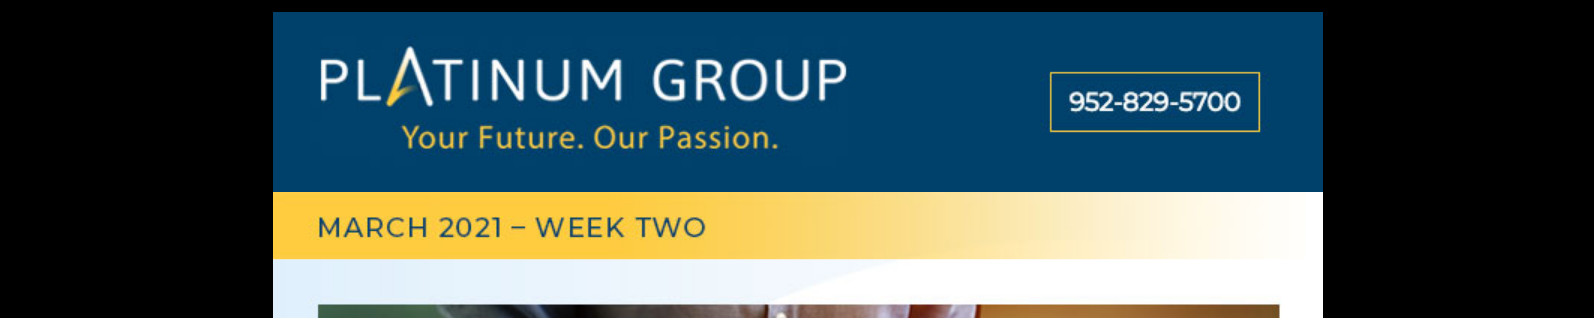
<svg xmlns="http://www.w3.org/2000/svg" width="1594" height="318">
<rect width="100%" height="100%" fill="#000"/>
<rect x="273" y="192" width="1050" height="126" fill="#fff"/>
<image x="273" y="12" width="1050" height="180" href="media/1.png"/>
<image x="273" y="192" width="1032" height="68" href="media/2.png"/>
<image x="273" y="259" width="1009" height="59" href="media/3.png"/>
</svg>
